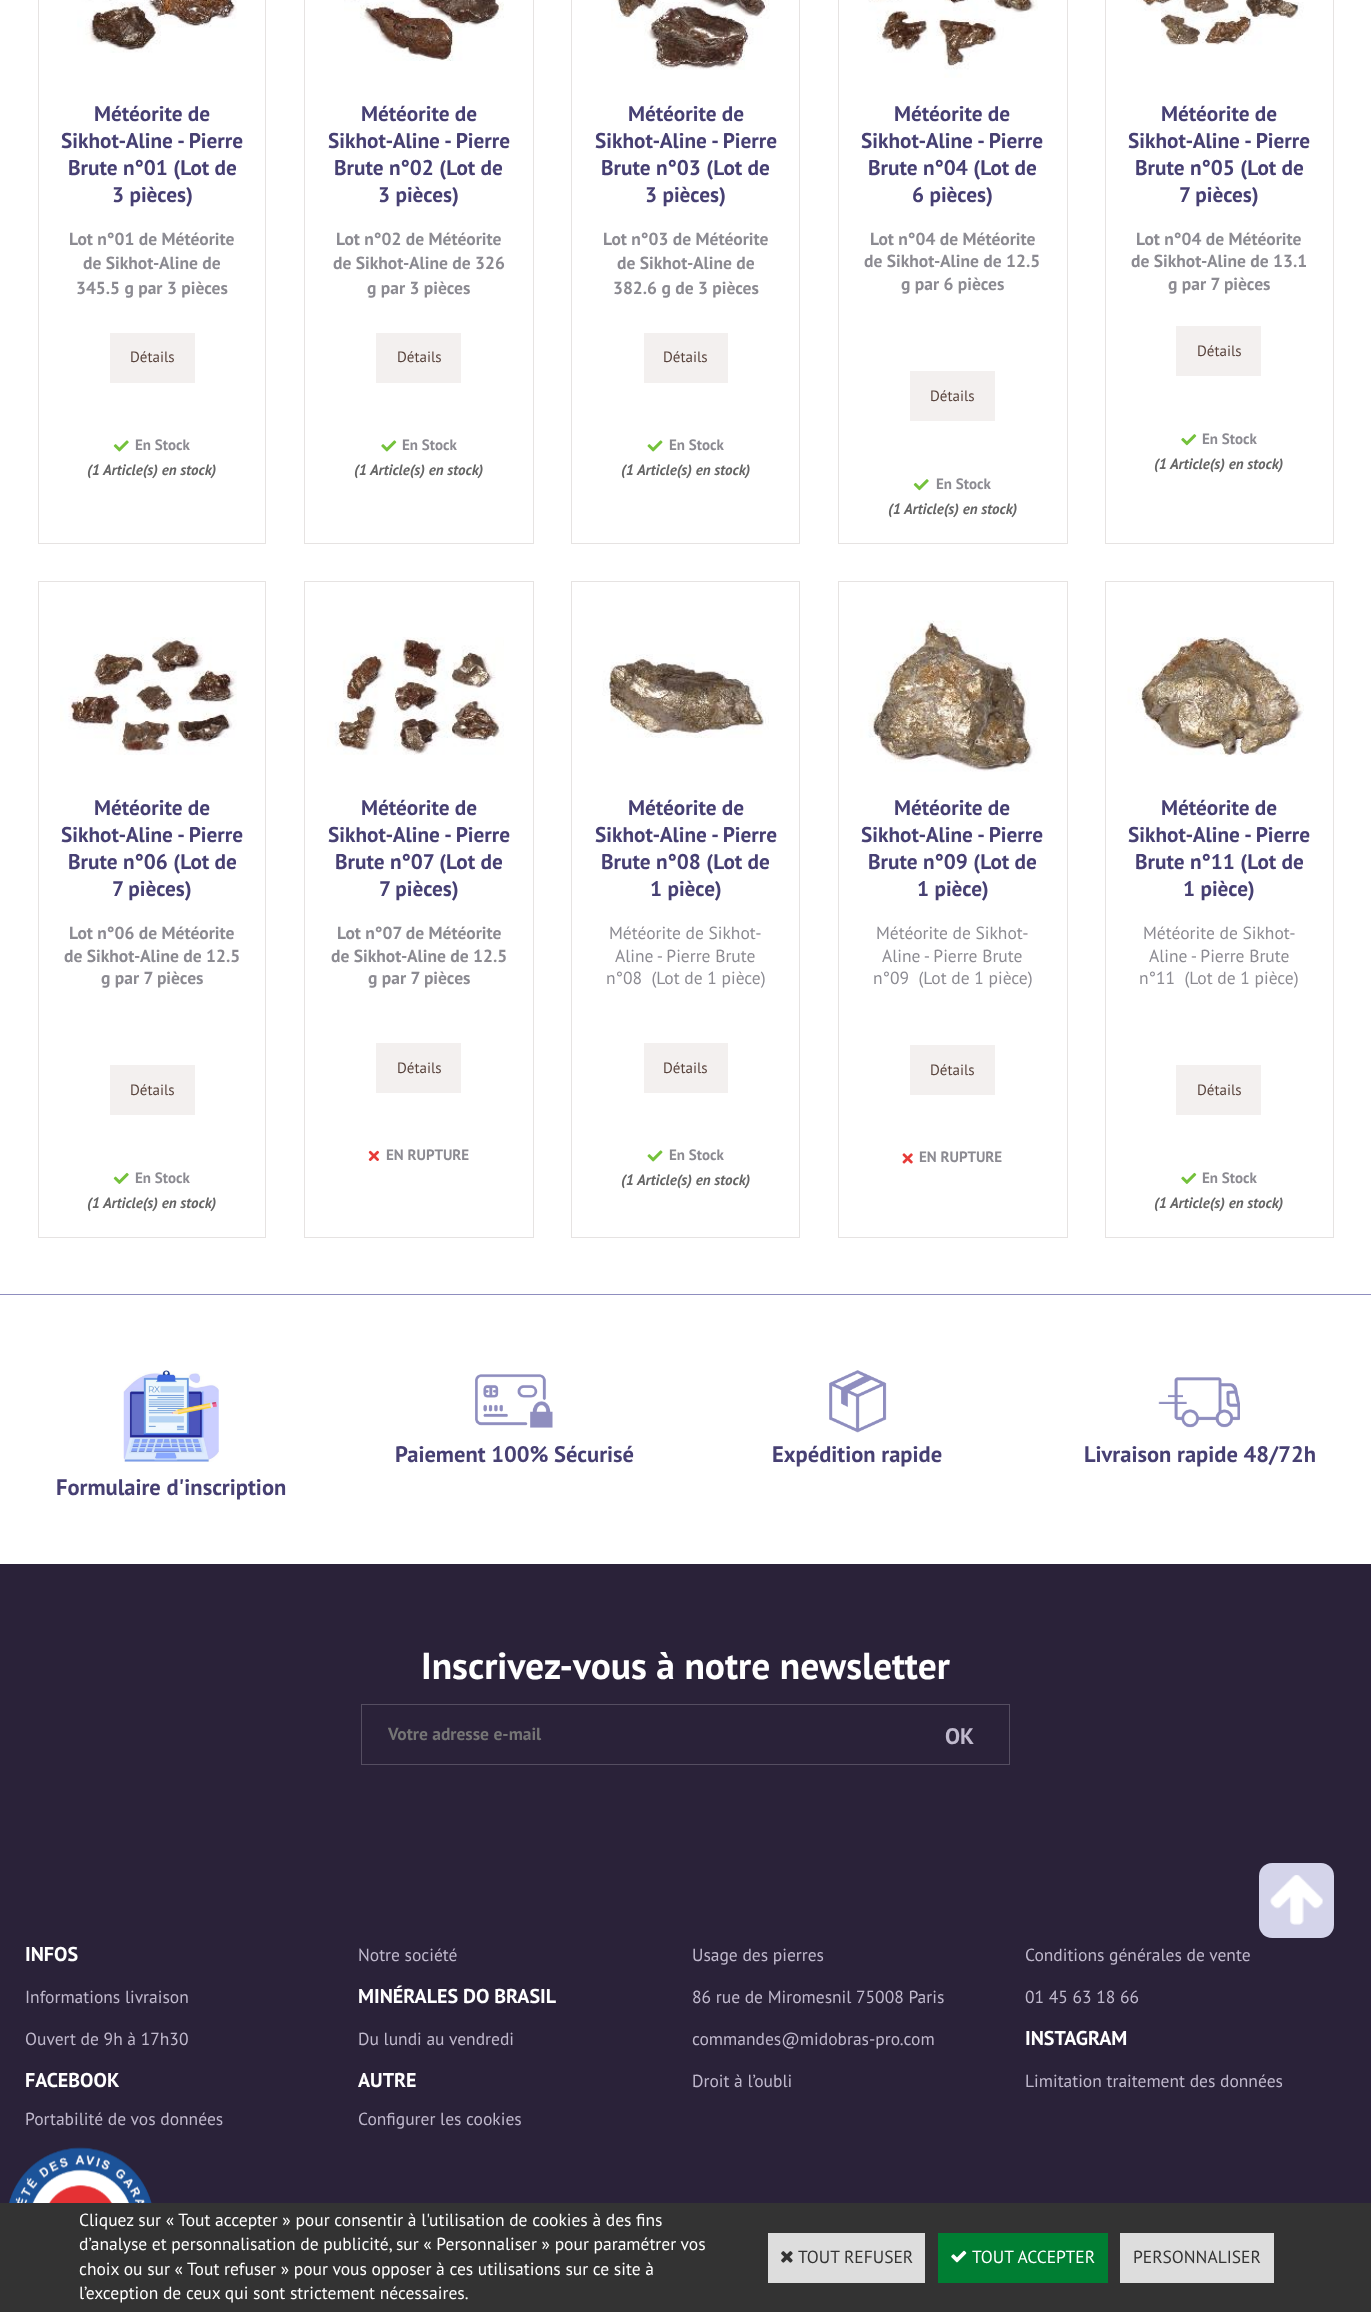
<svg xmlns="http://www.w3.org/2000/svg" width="1371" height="2312">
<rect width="100%" height="100%" fill="#fff"/>
<rect x="38.5" y="-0.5" width="227" height="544" fill="none" stroke="#e6e3e2"/>
<image x="77" y="0" width="160" height="53" href="media/1.png"/>
<text x="94" y="121" style="font-family:PT Sans;font-size:21.25px;font-weight:bold;fill:#474073">Météorite de</text>
<text x="61" y="148" style="font-family:PT Sans;font-size:21.25px;font-weight:bold;fill:#474073">Sikhot-Aline - Pierre</text>
<text x="68" y="175" style="font-family:PT Sans;font-size:21.25px;font-weight:bold;fill:#474073">Brute n°01 (Lot de</text>
<text x="112" y="202" style="font-family:PT Sans;font-size:21.25px;font-weight:bold;fill:#474073">3 pièces)</text>
<text x="69" y="245" style="font-family:PT Sans;font-size:17.5px;font-weight:bold;fill:#8c8b92">Lot n°01 de Météorite</text>
<text x="83" y="269" style="font-family:PT Sans;font-size:17.5px;font-weight:bold;fill:#8c8b92">de Sikhot-Aline de</text>
<text x="76" y="294" style="font-family:PT Sans;font-size:17.5px;font-weight:bold;fill:#8c8b92">345.5 g par 3 pièces</text>
<rect x="110" y="333" width="85" height="50" fill="#f3f0ef"/>
<text x="130" y="362" style="font-family:PT Sans;font-size:15px;fill:#58433c">Détails</text>
<image x="113" y="440" width="16" height="12" href="media/2.png"/>
<text x="135" y="450" style="font-family:PT Sans;font-size:15px;font-weight:bold;fill:#8c8b92">En Stock</text>
<text x="87" y="475" style="font-family:PT Sans;font-size:15px;font-weight:bold;font-style:italic;fill:#666">(1 Article(s) en stock)</text>
<rect x="304.5" y="-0.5" width="229" height="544" fill="none" stroke="#e6e3e2"/>
<image x="344" y="0" width="160" height="61" href="media/3.png"/>
<text x="361" y="121" style="font-family:PT Sans;font-size:21.25px;font-weight:bold;fill:#474073">Météorite de</text>
<text x="328" y="148" style="font-family:PT Sans;font-size:21.25px;font-weight:bold;fill:#474073">Sikhot-Aline - Pierre</text>
<text x="334" y="175" style="font-family:PT Sans;font-size:21.25px;font-weight:bold;fill:#474073">Brute n°02 (Lot de</text>
<text x="378" y="202" style="font-family:PT Sans;font-size:21.25px;font-weight:bold;fill:#474073">3 pièces)</text>
<text x="336" y="245" style="font-family:PT Sans;font-size:17.5px;font-weight:bold;fill:#8c8b92">Lot n°02 de Météorite</text>
<text x="333" y="269" style="font-family:PT Sans;font-size:17.5px;font-weight:bold;fill:#8c8b92">de Sikhot-Aline de 326</text>
<text x="367" y="294" style="font-family:PT Sans;font-size:17.5px;font-weight:bold;fill:#8c8b92">g par 3 pièces</text>
<rect x="376" y="333" width="85" height="50" fill="#f3f0ef"/>
<text x="397" y="362" style="font-family:PT Sans;font-size:15px;fill:#58433c">Détails</text>
<image x="381" y="440" width="16" height="12" href="media/4.png"/>
<text x="402" y="450" style="font-family:PT Sans;font-size:15px;font-weight:bold;fill:#8c8b92">En Stock</text>
<text x="354" y="475" style="font-family:PT Sans;font-size:15px;font-weight:bold;font-style:italic;fill:#666">(1 Article(s) en stock)</text>
<rect x="571.5" y="-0.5" width="228" height="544" fill="none" stroke="#e6e3e2"/>
<image x="611" y="0" width="159" height="70" href="media/5.png"/>
<text x="628" y="121" style="font-family:PT Sans;font-size:21.25px;font-weight:bold;fill:#474073">Météorite de</text>
<text x="595" y="148" style="font-family:PT Sans;font-size:21.25px;font-weight:bold;fill:#474073">Sikhot-Aline - Pierre</text>
<text x="601" y="175" style="font-family:PT Sans;font-size:21.25px;font-weight:bold;fill:#474073">Brute n°03 (Lot de</text>
<text x="645" y="202" style="font-family:PT Sans;font-size:21.25px;font-weight:bold;fill:#474073">3 pièces)</text>
<text x="603" y="245" style="font-family:PT Sans;font-size:17.5px;font-weight:bold;fill:#8c8b92">Lot n°03 de Météorite</text>
<text x="617" y="269" style="font-family:PT Sans;font-size:17.5px;font-weight:bold;fill:#8c8b92">de Sikhot-Aline de</text>
<text x="613" y="294" style="font-family:PT Sans;font-size:17.5px;font-weight:bold;fill:#8c8b92">382.6 g de 3 pièces</text>
<rect x="644" y="333" width="84" height="50" fill="#f3f0ef"/>
<text x="663" y="362" style="font-family:PT Sans;font-size:15px;fill:#58433c">Détails</text>
<image x="647" y="440" width="16" height="12" href="media/6.png"/>
<text x="669" y="450" style="font-family:PT Sans;font-size:15px;font-weight:bold;fill:#8c8b92">En Stock</text>
<text x="621" y="475" style="font-family:PT Sans;font-size:15px;font-weight:bold;font-style:italic;fill:#666">(1 Article(s) en stock)</text>
<rect x="838.5" y="-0.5" width="229" height="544" fill="none" stroke="#e6e3e2"/>
<image x="868" y="0" width="170" height="78" href="media/7.png"/>
<text x="894" y="121" style="font-family:PT Sans;font-size:21.25px;font-weight:bold;fill:#474073">Météorite de</text>
<text x="861" y="148" style="font-family:PT Sans;font-size:21.25px;font-weight:bold;fill:#474073">Sikhot-Aline - Pierre</text>
<text x="868" y="175" style="font-family:PT Sans;font-size:21.25px;font-weight:bold;fill:#474073">Brute n°04 (Lot de</text>
<text x="912" y="202" style="font-family:PT Sans;font-size:21.25px;font-weight:bold;fill:#474073">6 pièces)</text>
<text x="870" y="245" style="font-family:PT Sans;font-size:17.5px;font-weight:bold;fill:#8c8b92">Lot n°04 de Météorite</text>
<text x="864" y="267" style="font-family:PT Sans;font-size:17.5px;font-weight:bold;fill:#8c8b92">de Sikhot-Aline de 12.5</text>
<text x="901" y="290" style="font-family:PT Sans;font-size:17.5px;font-weight:bold;fill:#8c8b92">g par 6 pièces</text>
<rect x="910" y="371" width="85" height="50" fill="#f3f0ef"/>
<text x="930" y="401" style="font-family:PT Sans;font-size:15px;fill:#58433c">Détails</text>
<image x="913" y="479" width="16" height="12" href="media/8.png"/>
<text x="936" y="489" style="font-family:PT Sans;font-size:15px;font-weight:bold;fill:#8c8b92">En Stock</text>
<text x="888" y="514" style="font-family:PT Sans;font-size:15px;font-weight:bold;font-style:italic;fill:#666">(1 Article(s) en stock)</text>
<rect x="1105.5" y="-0.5" width="228" height="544" fill="none" stroke="#e6e3e2"/>
<image x="1136" y="0" width="168" height="46" href="media/9.png"/>
<text x="1161" y="121" style="font-family:PT Sans;font-size:21.25px;font-weight:bold;fill:#474073">Météorite de</text>
<text x="1128" y="148" style="font-family:PT Sans;font-size:21.25px;font-weight:bold;fill:#474073">Sikhot-Aline - Pierre</text>
<text x="1135" y="175" style="font-family:PT Sans;font-size:21.25px;font-weight:bold;fill:#474073">Brute n°05 (Lot de</text>
<text x="1179" y="202" style="font-family:PT Sans;font-size:21.25px;font-weight:bold;fill:#474073">7 pièces)</text>
<text x="1136" y="245" style="font-family:PT Sans;font-size:17.5px;font-weight:bold;fill:#8c8b92">Lot n°04 de Météorite</text>
<text x="1131" y="267" style="font-family:PT Sans;font-size:17.5px;font-weight:bold;fill:#8c8b92">de Sikhot-Aline de 13.1</text>
<text x="1168" y="290" style="font-family:PT Sans;font-size:17.5px;font-weight:bold;fill:#8c8b92">g par 7 pièces</text>
<rect x="1176" y="326" width="85" height="50" fill="#f3f0ef"/>
<text x="1197" y="356" style="font-family:PT Sans;font-size:15px;fill:#58433c">Détails</text>
<image x="1181" y="434" width="16" height="12" href="media/10.png"/>
<text x="1202" y="444" style="font-family:PT Sans;font-size:15px;font-weight:bold;fill:#8c8b92">En Stock</text>
<text x="1154" y="469" style="font-family:PT Sans;font-size:15px;font-weight:bold;font-style:italic;fill:#666">(1 Article(s) en stock)</text>
<rect x="38.5" y="581.5" width="227" height="656" fill="none" stroke="#e6e3e2"/>
<image x="60" y="637" width="177" height="118" href="media/11.png"/>
<text x="94" y="815" style="font-family:PT Sans;font-size:21.25px;font-weight:bold;fill:#474073">Météorite de</text>
<text x="61" y="842" style="font-family:PT Sans;font-size:21.25px;font-weight:bold;fill:#474073">Sikhot-Aline - Pierre</text>
<text x="68" y="869" style="font-family:PT Sans;font-size:21.25px;font-weight:bold;fill:#474073">Brute n°06 (Lot de</text>
<text x="112" y="896" style="font-family:PT Sans;font-size:21.25px;font-weight:bold;fill:#474073">7 pièces)</text>
<text x="69" y="939" style="font-family:PT Sans;font-size:17.5px;font-weight:bold;fill:#8c8b92">Lot n°06 de Météorite</text>
<text x="64" y="962" style="font-family:PT Sans;font-size:17.5px;font-weight:bold;fill:#8c8b92">de Sikhot-Aline de 12.5</text>
<text x="101" y="984" style="font-family:PT Sans;font-size:17.5px;font-weight:bold;fill:#8c8b92">g par 7 pièces</text>
<rect x="110" y="1065" width="85" height="50" fill="#f3f0ef"/>
<text x="130" y="1095" style="font-family:PT Sans;font-size:15px;fill:#58433c">Détails</text>
<image x="113" y="1172" width="16" height="12" href="media/12.png"/>
<text x="135" y="1183" style="font-family:PT Sans;font-size:15px;font-weight:bold;fill:#8c8b92">En Stock</text>
<text x="87" y="1208" style="font-family:PT Sans;font-size:15px;font-weight:bold;font-style:italic;fill:#666">(1 Article(s) en stock)</text>
<rect x="304.5" y="581.5" width="229" height="656" fill="none" stroke="#e6e3e2"/>
<image x="327" y="637" width="177" height="118" href="media/13.png"/>
<text x="361" y="815" style="font-family:PT Sans;font-size:21.25px;font-weight:bold;fill:#474073">Météorite de</text>
<text x="328" y="842" style="font-family:PT Sans;font-size:21.25px;font-weight:bold;fill:#474073">Sikhot-Aline - Pierre</text>
<text x="335" y="869" style="font-family:PT Sans;font-size:21.25px;font-weight:bold;fill:#474073">Brute n°07 (Lot de</text>
<text x="379" y="896" style="font-family:PT Sans;font-size:21.25px;font-weight:bold;fill:#474073">7 pièces)</text>
<text x="337" y="939" style="font-family:PT Sans;font-size:17.5px;font-weight:bold;fill:#8c8b92">Lot n°07 de Météorite</text>
<text x="331" y="962" style="font-family:PT Sans;font-size:17.5px;font-weight:bold;fill:#8c8b92">de Sikhot-Aline de 12.5</text>
<text x="368" y="984" style="font-family:PT Sans;font-size:17.5px;font-weight:bold;fill:#8c8b92">g par 7 pièces</text>
<rect x="376" y="1043" width="85" height="50" fill="#f3f0ef"/>
<text x="397" y="1073" style="font-family:PT Sans;font-size:15px;fill:#58433c">Détails</text>
<image x="368" y="1150" width="11" height="11" href="media/14.png"/>
<text x="386" y="1160" style="font-family:PT Sans;font-size:15px;font-weight:bold;fill:#8c8b92">EN RUPTURE</text>
<rect x="571.5" y="581.5" width="228" height="656" fill="none" stroke="#e6e3e2"/>
<image x="602" y="654" width="167" height="84" href="media/15.png"/>
<text x="628" y="815" style="font-family:PT Sans;font-size:21.25px;font-weight:bold;fill:#474073">Météorite de</text>
<text x="595" y="842" style="font-family:PT Sans;font-size:21.25px;font-weight:bold;fill:#474073">Sikhot-Aline - Pierre</text>
<text x="601" y="869" style="font-family:PT Sans;font-size:21.25px;font-weight:bold;fill:#474073">Brute n°08 (Lot de</text>
<text x="650" y="896" style="font-family:PT Sans;font-size:21.25px;font-weight:bold;fill:#474073">1 pièce)</text>
<text x="609" y="939" style="font-family:PT Sans;font-size:17.5px;fill:#8c8b92">Météorite de Sikhot-</text>
<text x="615" y="962" style="font-family:PT Sans;font-size:17.5px;fill:#8c8b92">Aline - Pierre Brute</text>
<text x="606" y="984" style="font-family:PT Sans;font-size:17.5px;fill:#8c8b92" xml:space="preserve">n°08  (Lot de 1 pièce)</text>
<rect x="644" y="1043" width="84" height="50" fill="#f3f0ef"/>
<text x="663" y="1073" style="font-family:PT Sans;font-size:15px;fill:#58433c">Détails</text>
<image x="647" y="1150" width="16" height="12" href="media/6.png"/>
<text x="669" y="1160" style="font-family:PT Sans;font-size:15px;font-weight:bold;fill:#8c8b92">En Stock</text>
<text x="621" y="1185" style="font-family:PT Sans;font-size:15px;font-weight:bold;font-style:italic;fill:#666">(1 Article(s) en stock)</text>
<rect x="838.5" y="581.5" width="229" height="656" fill="none" stroke="#e6e3e2"/>
<image x="860" y="620" width="178" height="152" href="media/16.png"/>
<text x="894" y="815" style="font-family:PT Sans;font-size:21.25px;font-weight:bold;fill:#474073">Météorite de</text>
<text x="861" y="842" style="font-family:PT Sans;font-size:21.25px;font-weight:bold;fill:#474073">Sikhot-Aline - Pierre</text>
<text x="868" y="869" style="font-family:PT Sans;font-size:21.25px;font-weight:bold;fill:#474073">Brute n°09 (Lot de</text>
<text x="917" y="896" style="font-family:PT Sans;font-size:21.25px;font-weight:bold;fill:#474073">1 pièce)</text>
<text x="876" y="939" style="font-family:PT Sans;font-size:17.5px;fill:#8c8b92">Météorite de Sikhot-</text>
<text x="882" y="962" style="font-family:PT Sans;font-size:17.5px;fill:#8c8b92">Aline - Pierre Brute</text>
<text x="873" y="984" style="font-family:PT Sans;font-size:17.5px;fill:#8c8b92" xml:space="preserve">n°09  (Lot de 1 pièce)</text>
<rect x="910" y="1045" width="85" height="50" fill="#f3f0ef"/>
<text x="930" y="1075" style="font-family:PT Sans;font-size:15px;fill:#58433c">Détails</text>
<image x="902" y="1153" width="11" height="11" href="media/17.png"/>
<text x="919" y="1162" style="font-family:PT Sans;font-size:15px;font-weight:bold;fill:#8c8b92">EN RUPTURE</text>
<rect x="1105.5" y="581.5" width="228" height="656" fill="none" stroke="#e6e3e2"/>
<image x="1127" y="637" width="177" height="120" href="media/18.png"/>
<text x="1161" y="815" style="font-family:PT Sans;font-size:21.25px;font-weight:bold;fill:#474073">Météorite de</text>
<text x="1128" y="842" style="font-family:PT Sans;font-size:21.25px;font-weight:bold;fill:#474073">Sikhot-Aline - Pierre</text>
<text x="1135" y="869" style="font-family:PT Sans;font-size:21.25px;font-weight:bold;fill:#474073">Brute n°11 (Lot de</text>
<text x="1183" y="896" style="font-family:PT Sans;font-size:21.25px;font-weight:bold;fill:#474073">1 pièce)</text>
<text x="1143" y="939" style="font-family:PT Sans;font-size:17.5px;fill:#8c8b92">Météorite de Sikhot-</text>
<text x="1149" y="962" style="font-family:PT Sans;font-size:17.5px;fill:#8c8b92">Aline - Pierre Brute</text>
<text x="1139" y="984" style="font-family:PT Sans;font-size:17.5px;fill:#8c8b92" xml:space="preserve">n°11  (Lot de 1 pièce)</text>
<rect x="1176" y="1065" width="85" height="50" fill="#f3f0ef"/>
<text x="1197" y="1095" style="font-family:PT Sans;font-size:15px;fill:#58433c">Détails</text>
<image x="1181" y="1172" width="16" height="12" href="media/19.png"/>
<text x="1202" y="1183" style="font-family:PT Sans;font-size:15px;font-weight:bold;fill:#8c8b92">En Stock</text>
<text x="1154" y="1208" style="font-family:PT Sans;font-size:15px;font-weight:bold;font-style:italic;fill:#666">(1 Article(s) en stock)</text>
<rect y="1564" width="1371" height="639" fill="#2a2239"/>
<rect y="1294" width="1371" height="1" fill="#8f8ebf"/>
<image x="475" y="1374" width="78" height="54" href="media/20.png"/>
<text x="395" y="1462" style="font-family:PT Sans;font-size:22.5px;font-weight:bold;fill:#474073">Paiement 100% Sécurisé</text>
<image x="829" y="1370" width="58" height="63" href="media/21.png"/>
<text x="772" y="1462" style="font-family:PT Sans;font-size:22.5px;font-weight:bold;fill:#474073">Expédition rapide</text>
<image x="1158" y="1377" width="82" height="51" href="media/22.png"/>
<text x="1084" y="1462" style="font-family:PT Sans;font-size:22.5px;font-weight:bold;fill:#474073">Livraison rapide 48/72h</text>
<image x="123" y="1370" width="96" height="92" href="media/23.png"/>
<text x="56" y="1495" style="font-family:PT Sans;font-size:22.5px;font-weight:bold;fill:#474073">Formulaire d'inscription</text>
<text x="421" y="1679" style="font-family:PT Sans;font-size:37.5px;font-weight:bold;fill:#fff">Inscrivez-vous à notre newsletter</text>
<rect x="361" y="1704" width="649" height="1" fill="#554e61"/>
<rect x="361" y="1764" width="550" height="1" fill="#554e61"/>
<rect x="361" y="1704" width="1" height="61" fill="#554e61"/>
<text x="388" y="1740" style="font-family:PT Sans;font-size:17.5px;font-weight:bold;fill:#757575">Votre adresse e-mail</text>
<rect x="1009" y="1704" width="1" height="61" fill="#554e61"/>
<rect x="910" y="1764" width="100" height="1" fill="#554e61"/>
<text x="945" y="1744" style="font-family:PT Sans;font-size:22.5px;font-weight:bold;fill:#c0b9cd">OK</text>
<text x="25" y="1961" style="font-family:PT Sans;font-size:20px;font-weight:bold;fill:#fff">INFOS</text>
<text x="358" y="1961" style="font-family:PT Sans;font-size:17.5px;fill:#c0b9cd">Notre société</text>
<text x="692" y="1961" style="font-family:PT Sans;font-size:17.5px;fill:#c0b9cd">Usage des pierres</text>
<text x="1025" y="1961" style="font-family:PT Sans;font-size:17.5px;fill:#c0b9cd">Conditions générales de vente</text>
<text x="25" y="2003" style="font-family:PT Sans;font-size:17.5px;fill:#c0b9cd">Informations livraison</text>
<text x="358" y="2003" style="font-family:PT Sans;font-size:20px;font-weight:bold;fill:#fff">MINÉRALES DO BRASIL</text>
<text x="692" y="2003" style="font-family:PT Sans;font-size:17.5px;fill:#c0b9cd">86 rue de Miromesnil 75008 Paris</text>
<text x="1025" y="2003" style="font-family:PT Sans;font-size:17.5px;fill:#c0b9cd">01 45 63 18 66</text>
<text x="25" y="2045" style="font-family:PT Sans;font-size:17.5px;fill:#c0b9cd">Ouvert de 9h à 17h30</text>
<text x="358" y="2045" style="font-family:PT Sans;font-size:17.5px;fill:#c0b9cd">Du lundi au vendredi</text>
<text x="692" y="2045" style="font-family:PT Sans;font-size:17.5px;fill:#c0b9cd">commandes@midobras-pro.com</text>
<text x="1025" y="2045" style="font-family:PT Sans;font-size:20px;font-weight:bold;fill:#fff">INSTAGRAM</text>
<text x="25" y="2087" style="font-family:PT Sans;font-size:20px;font-weight:bold;fill:#fff">FACEBOOK</text>
<text x="358" y="2087" style="font-family:PT Sans;font-size:20px;font-weight:bold;fill:#fff">AUTRE</text>
<text x="692" y="2087" style="font-family:PT Sans;font-size:17.5px;fill:#c0b9cd">Droit à l’oubli</text>
<text x="1025" y="2087" style="font-family:PT Sans;font-size:17.5px;fill:#c0b9cd">Limitation traitement des données</text>
<text x="25" y="2125" style="font-family:PT Sans;font-size:17.5px;fill:#c0b9cd">Portabilité de vos données</text>
<text x="358" y="2125" style="font-family:PT Sans;font-size:17.5px;fill:#c0b9cd">Configurer les cookies</text>
<rect x="1259" y="1863" width="75" height="75" rx="13" fill="#d4d4ea"/>
<image x="1270" y="1875" width="53" height="50" href="media/24.png"/>
<rect y="2203" width="1371" height="109" fill="#333"/>
<text x="79" y="2226" style="font-family:PT Sans;font-size:17.5px;fill:#fff">Cliquez sur « Tout accepter » pour consentir à l'utilisation de cookies à des fins</text>
<text x="79" y="2250" style="font-family:PT Sans;font-size:17.5px;fill:#fff">d’analyse et personnalisation de publicité, sur « Personnaliser » pour paramétrer vos</text>
<text x="79" y="2275" style="font-family:PT Sans;font-size:17.5px;fill:#fff">choix ou sur « Tout refuser » pour vous opposer à ces utilisations sur ce site à</text>
<text x="79" y="2299" style="font-family:PT Sans;font-size:17.5px;fill:#fff">l’exception de ceux qui sont strictement nécessaires.</text>
<rect x="768" y="2233" width="157" height="50" fill="#ddd"/>
<image x="781" y="2251" width="12" height="12" href="media/25.png"/>
<text x="798" y="2263" style="font-family:PT Sans;font-size:17.5px;fill:#333">TOUT REFUSER</text>
<rect x="938" y="2233" width="170" height="50" fill="#007e33"/>
<image x="951" y="2250" width="16" height="13" href="media/26.png"/>
<text x="972" y="2263" style="font-family:PT Sans;font-size:17.5px;fill:#fff">TOUT ACCEPTER</text>
<rect x="1120" y="2233" width="154" height="50" fill="#ddd"/>
<text x="1133" y="2263" style="font-family:PT Sans;font-size:17.5px;fill:#333">PERSONNALISER</text>
<image x="8" y="2147" width="144" height="56" href="media/27.png"/>
</svg>
